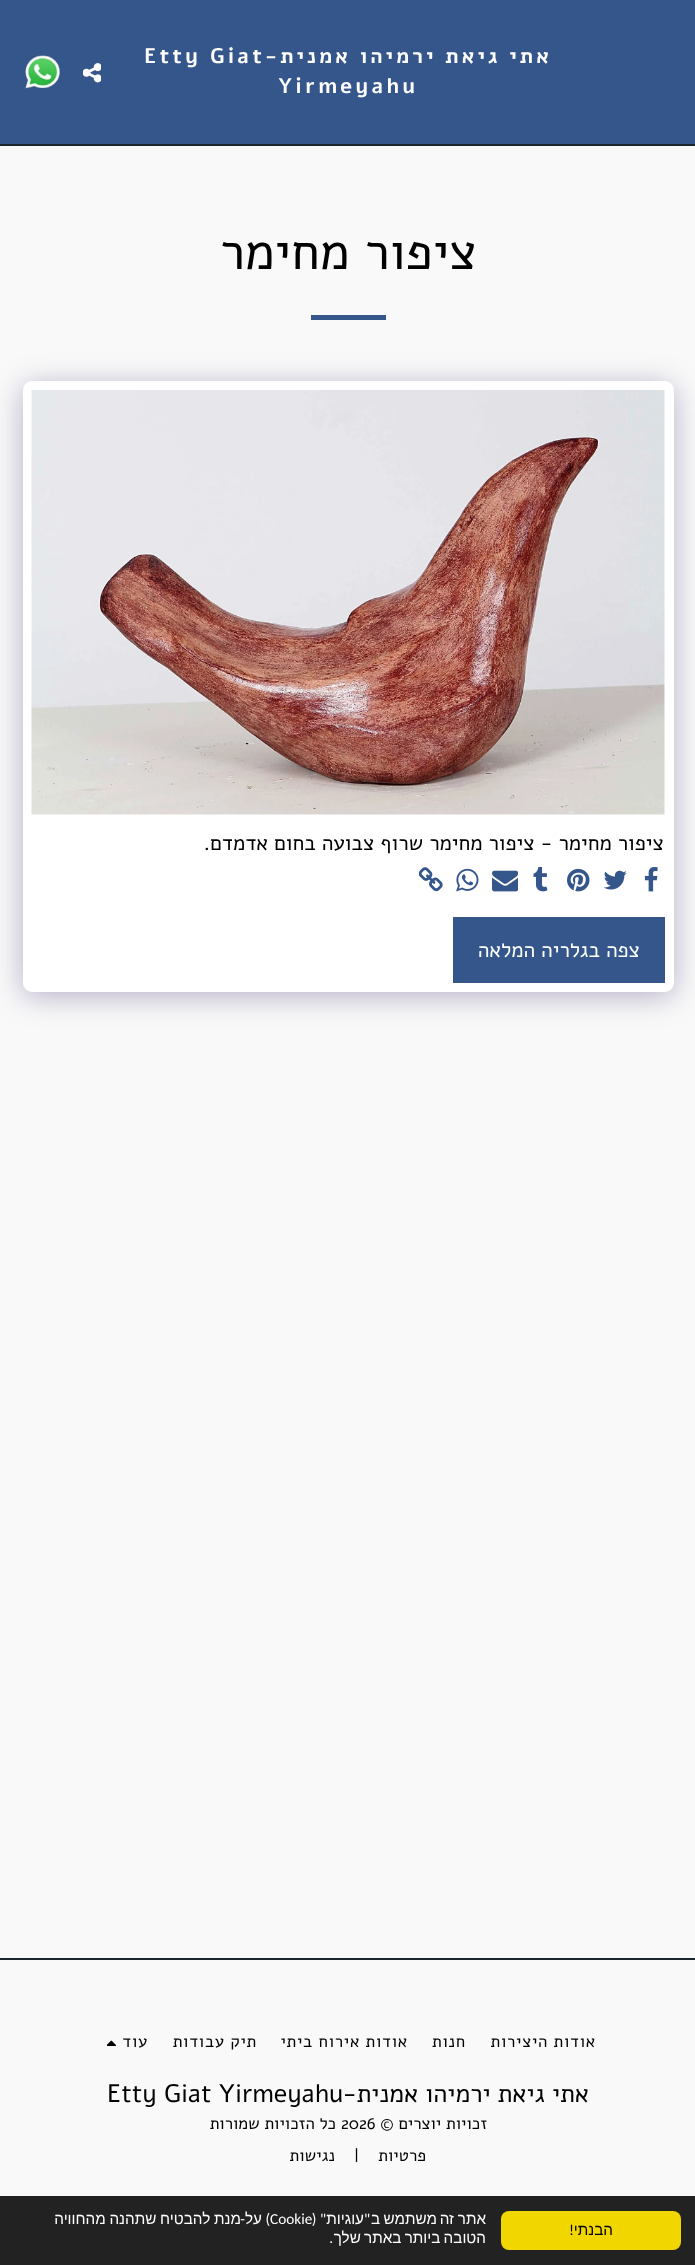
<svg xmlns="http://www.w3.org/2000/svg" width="695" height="2265">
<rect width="100%" height="100%" fill="#f9f9f9"/>
<rect width="695" height="144" fill="#34568b"/>
<rect y="144" width="695" height="2" fill="#1b262c"/>
<text x="552" y="63" style="font-family:Alef;font-size:21px;font-weight:bold;letter-spacing:3px;direction:rtl;fill:#fff">אתי גיאת ירמיהו אמנית-</text>
<text x="144" y="63" style="font-family:Alef;font-size:21px;font-weight:bold;letter-spacing:3px;fill:#fff">Etty Giat</text>
<text x="278" y="93" style="font-family:Alef;font-size:21px;font-weight:bold;letter-spacing:3px;fill:#fff">Yirmeyahu</text>
<image x="83" y="63" width="18" height="20" href="media/1.png"/>
<image x="25" y="55" width="35" height="34" href="media/2.png"/>
<text x="477" y="269" style="font-family:Alef;font-size:51.25px;direction:rtl;fill:#000">ציפור מחימר</text>
<rect x="311" y="315" width="75" height="5" fill="#34568b"/>
<rect x="23" y="386" width="651" height="610" rx="9" fill="#4d3f7a66" filter="blur(15px)"/>
<rect x="23" y="381" width="651" height="611" rx="9" fill="#fff"/>
<image x="31" y="390" width="634" height="425" href="media/3.png"/>
<text x="664" y="850" style="font-family:Alef;font-size:21px;direction:rtl;fill:#000">ציפור מחימר - ציפור מחימר שרוף צבועה בחום אדמדם.</text>
<image x="644" y="867" width="14" height="25" href="media/4.png"/>
<image x="603" y="870" width="24" height="20" href="media/5.png"/>
<image x="567" y="868" width="23" height="24" href="media/6.png"/>
<image x="533" y="867" width="15" height="25" href="media/7.png"/>
<image x="492" y="870" width="26" height="22" href="media/8.png"/>
<image x="456" y="868" width="23" height="24" href="media/9.png"/>
<image x="419" y="867" width="24" height="25" href="media/10.png"/>
<rect x="453" y="917" width="212" height="66" fill="#34568b"/>
<text x="640" y="957" style="font-family:Alef;font-size:21px;direction:rtl;fill:#fff">צפה בגלריה המלאה</text>
<rect y="1958" width="695" height="2" fill="#1b262c"/>
<text x="596" y="2047" style="font-family:Alef;font-size:16.75px;letter-spacing:0.75px;direction:rtl;fill:#000">אודות היצירות</text>
<text x="466" y="2047" style="font-family:Alef;font-size:16.75px;letter-spacing:0.75px;direction:rtl;fill:#000">חנות</text>
<text x="408" y="2047" style="font-family:Alef;font-size:16.75px;letter-spacing:0.75px;direction:rtl;fill:#000">אודות אירוח ביתי</text>
<text x="257" y="2047" style="font-family:Alef;font-size:16.75px;letter-spacing:0.75px;direction:rtl;fill:#000">תיק עבודות</text>
<text x="148" y="2047" style="font-family:Alef;font-size:16.75px;letter-spacing:0.75px;direction:rtl;fill:#000">עוד</text>
<image x="107" y="2040" width="9" height="6" href="media/11.png"/>
<text x="589" y="2102" style="font-family:Alef;font-size:25.25px;direction:rtl;fill:#000">אתי גיאת ירמיהו אמנית-</text>
<text x="107" y="2102" style="font-family:Alef;font-size:25.25px;fill:#000">Etty Giat Yirmeyahu</text>
<text x="487" y="2129" style="font-family:Alef;font-size:16.75px;direction:rtl;fill:#000">זכויות יוצרים ©</text>
<text x="341" y="2129" style="font-family:Alef;font-size:16.75px;fill:#000">2026</text>
<text x="336" y="2129" style="font-family:Alef;font-size:16.75px;direction:rtl;fill:#000">כל הזכויות שמורות</text>
<text x="426" y="2161" style="font-family:Alef;font-size:16.75px;direction:rtl;fill:#000">פרטיות</text>
<text x="354" y="2161" style="font-family:Alef;font-size:16.75px;fill:#000">|</text>
<text x="335" y="2161" style="font-family:Alef;font-size:16.75px;direction:rtl;fill:#000">נגישות</text>
<rect y="2196" width="695" height="69" fill="#222"/>
<rect x="501" y="2211" width="180" height="39" rx="8" fill="#f1d600"/>
<text x="613" y="2235" style="font-family:Liberation Sans;font-size:15.25px;direction:rtl;fill:#000">הבנתי</text>
<text x="574" y="2235" style="font-family:Carlito;font-size:15.25px;direction:rtl;fill:#000">!</text>
<text x="486" y="2224" style="font-family:Liberation Sans;font-size:15.25px;direction:rtl;fill:#fff">אתר</text>
<text x="454" y="2224" style="font-family:Liberation Sans;font-size:15.25px;direction:rtl;fill:#fff">זה</text>
<text x="437" y="2224" style="font-family:Liberation Sans;font-size:15.25px;direction:rtl;fill:#fff">משתמש</text>
<text x="380" y="2224" style="font-family:Liberation Sans;font-size:15.25px;direction:rtl;fill:#fff">ב</text>
<text x="370" y="2224" style="font-family:Carlito;font-size:15.25px;direction:rtl;fill:#fff">"</text>
<text x="364" y="2224" style="font-family:Liberation Sans;font-size:15.25px;direction:rtl;fill:#fff">עוגיות</text>
<text x="326" y="2224" style="font-family:Carlito;font-size:15.25px;direction:rtl;fill:#fff">" (</text>
<text x="270" y="2224" style="font-family:Carlito;font-size:15.25px;fill:#fff">Cookie</text>
<text x="270" y="2224" style="font-family:Carlito;font-size:15.25px;direction:rtl;fill:#fff">)</text>
<text x="262" y="2224" style="font-family:Liberation Sans;font-size:15.25px;direction:rtl;fill:#fff">על</text>
<text x="241" y="2224" word-spacing="-0.5" style="font-family:Liberation Sans;font-size:15.25px;direction:rtl;fill:#fff">מנת להבטיח שתהנה מהחוויה</text>
<text x="245" y="2224" style="font-family:Carlito;font-size:15.25px;direction:rtl;fill:#fff">-</text>
<text x="486" y="2243" word-spacing="-1" style="font-family:Liberation Sans;font-size:15.25px;direction:rtl;fill:#fff">הטובה ביותר באתר שלך</text>
<text x="333" y="2243" style="font-family:Carlito;font-size:15.25px;direction:rtl;fill:#fff">.</text>
</svg>
